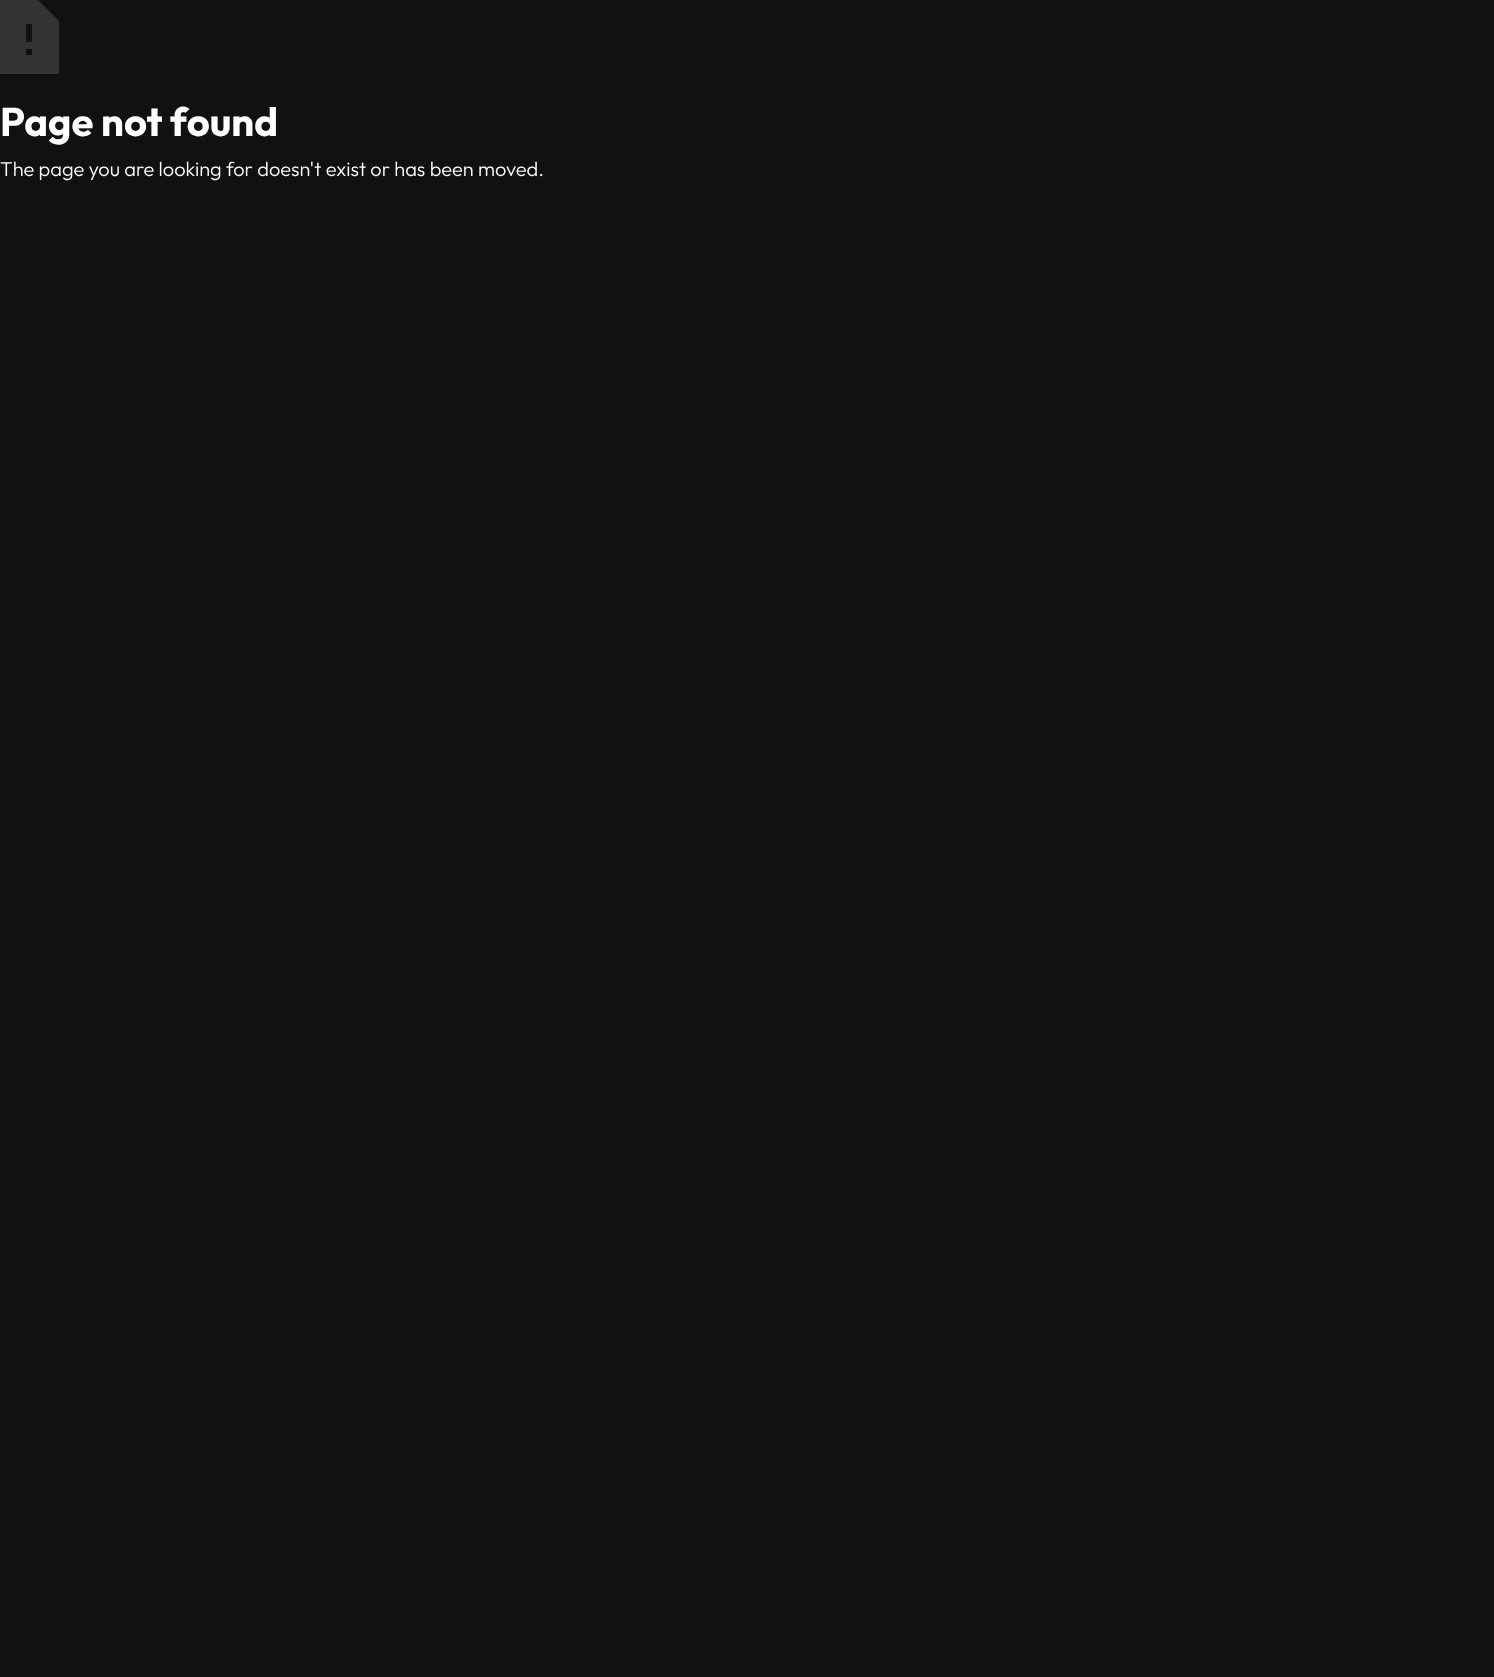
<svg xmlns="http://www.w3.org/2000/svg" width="1494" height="1677">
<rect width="100%" height="100%" fill="#111"/>
<path d="M0 0h38l21 21v53h-59zm26 24h6v18h-6zm0 25h6v6h-6z" fill="#333" fill-rule="evenodd"/>
<text x="0" y="136" style="font-family:Outfit;font-size:40px;font-weight:bold;fill:#fff">Page not found</text>
<text x="0" y="176" style="font-family:Outfit;font-size:20px;font-weight:300;fill:#fff">The page you are looking for doesn't exist or has been moved.</text>
</svg>
